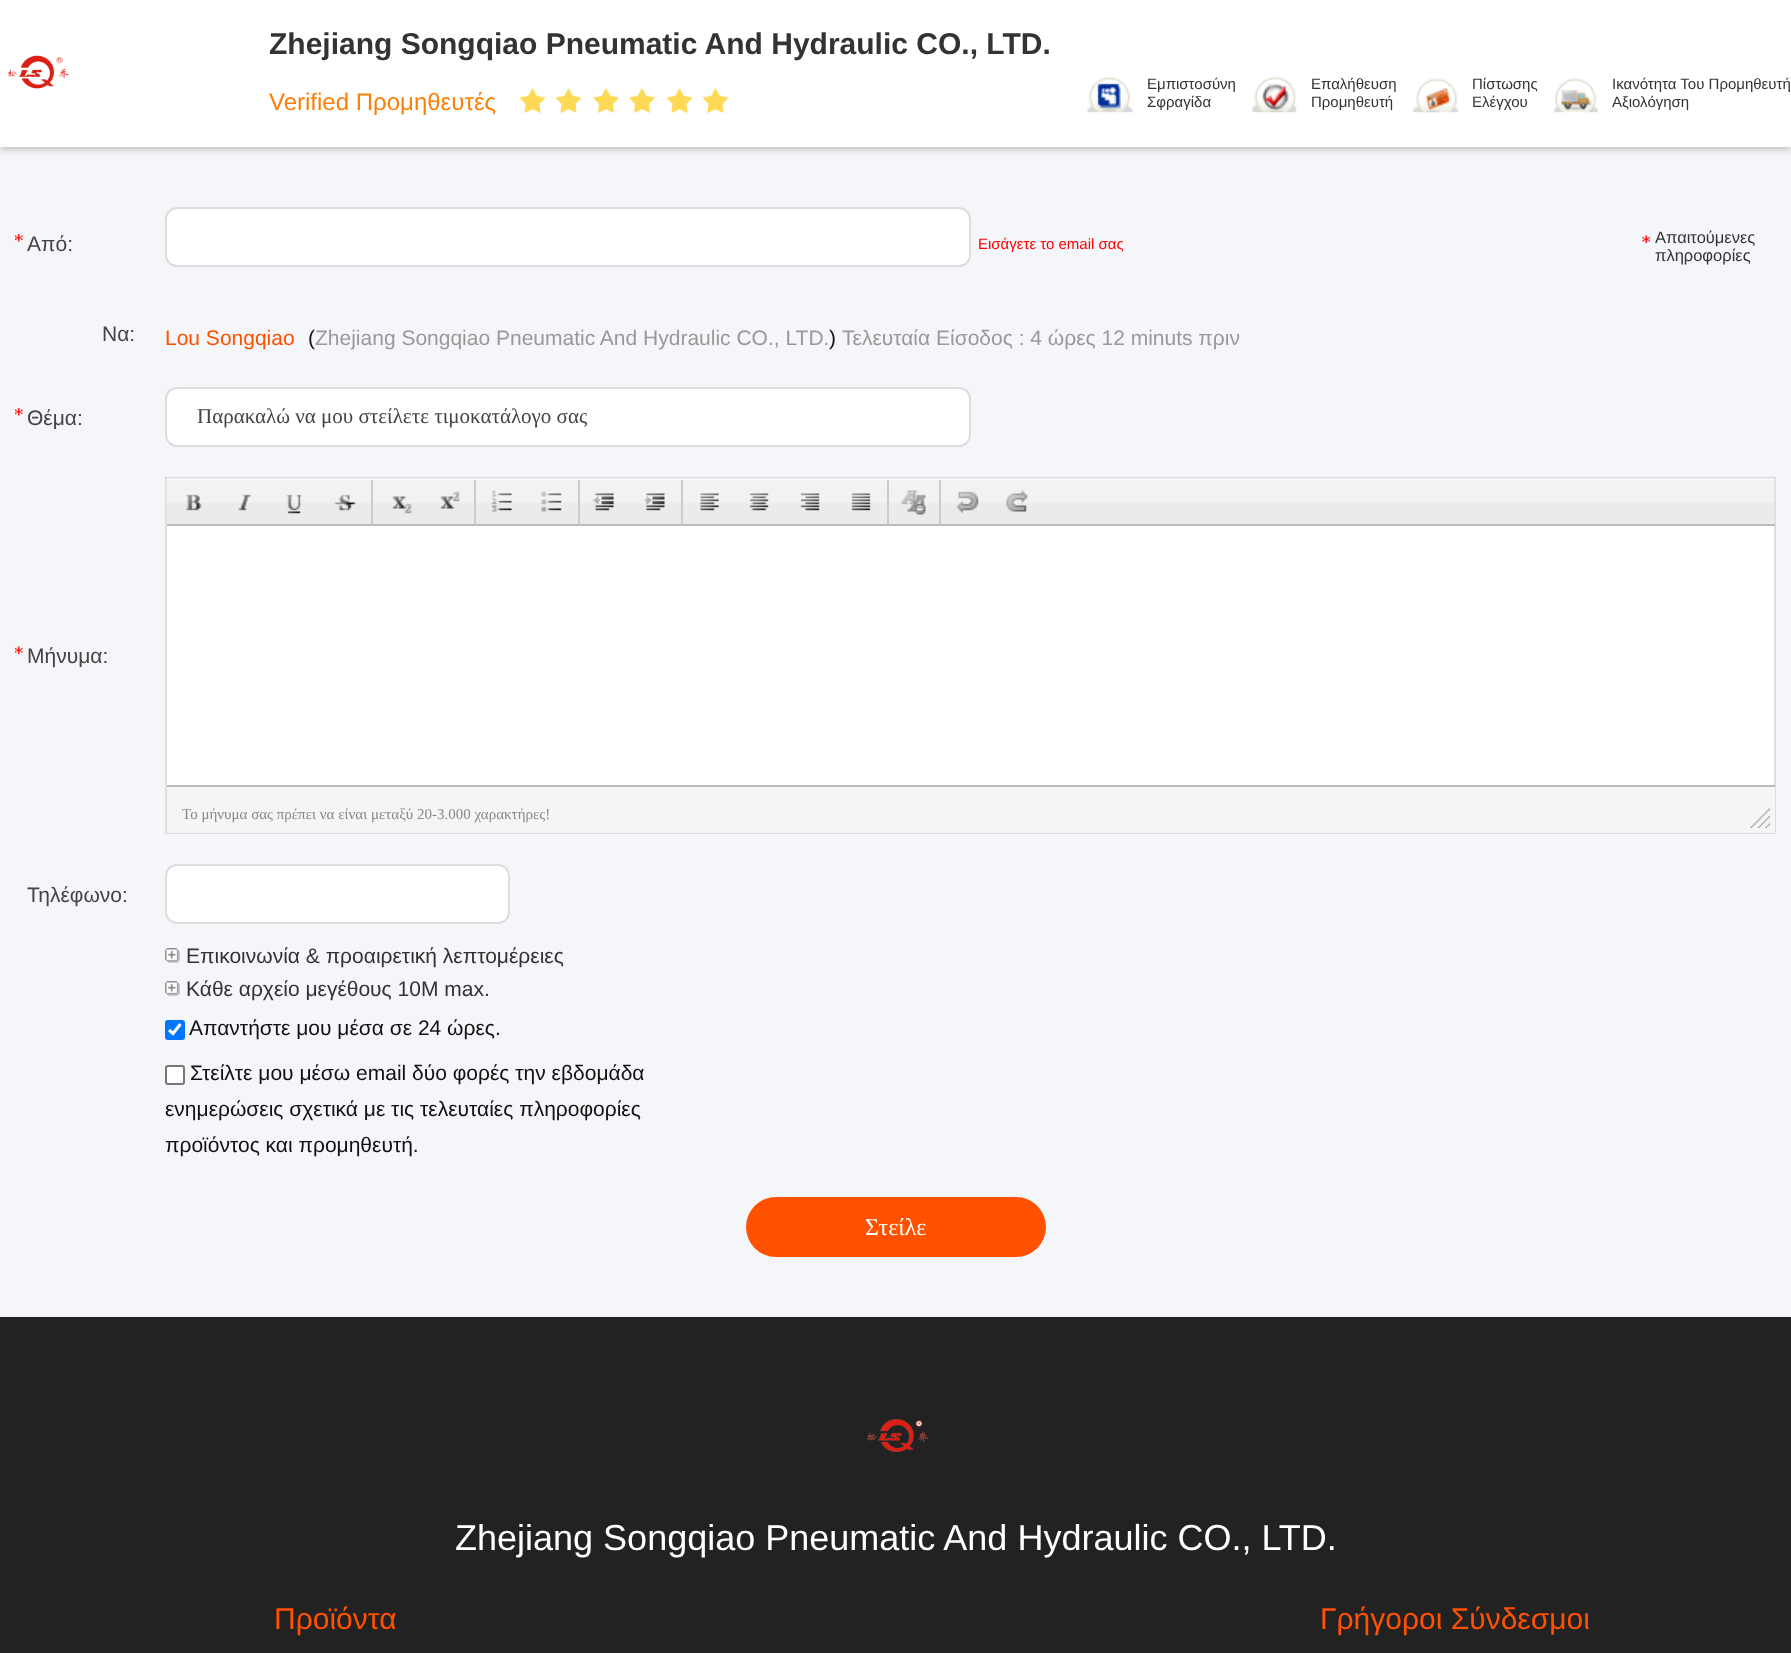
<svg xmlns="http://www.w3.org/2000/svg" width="1791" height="1653">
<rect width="100%" height="100%" fill="#f4f6f9"/>
<rect y="3" width="1791" height="147" fill="#00000033" filter="blur(3px)"/>
<rect width="1791" height="147" fill="#fff"/>
<image x="8" y="55" width="61" height="34" href="media/1.png"/>
<text x="269" y="54" style="font-family:Liberation Sans;font-size:30px;font-weight:bold;fill:#333">Zhejiang Songqiao Pneumatic And Hydraulic CO., LTD.</text>
<text x="269" y="110" style="font-family:Liberation Sans;font-size:24px;fill:#fb8008">Verified Προμηθευτές</text>
<image x="519" y="88" width="27" height="26" href="media/2.png"/>
<image x="555" y="88" width="27" height="26" href="media/3.png"/>
<image x="593" y="88" width="27" height="26" href="media/4.png"/>
<image x="629" y="88" width="27" height="26" href="media/4.png"/>
<image x="666" y="88" width="27" height="26" href="media/3.png"/>
<image x="702" y="88" width="27" height="26" href="media/3.png"/>
<image x="1087" y="76" width="46" height="37" href="media/5.png"/>
<text x="1147" y="89" style="font-family:Liberation Sans;font-size:15px;fill:#333">Εμπιστοσύνη</text>
<text x="1147" y="107" style="font-family:Liberation Sans;font-size:15px;fill:#333">Σφραγίδα</text>
<image x="1252" y="76" width="45" height="37" href="media/6.png"/>
<text x="1311" y="89" style="font-family:Liberation Sans;font-size:15px;fill:#333">Επαλήθευση</text>
<text x="1311" y="107" style="font-family:Liberation Sans;font-size:15px;fill:#333">Προμηθευτή</text>
<image x="1412" y="78" width="47" height="35" href="media/7.png"/>
<text x="1472" y="89" style="font-family:Liberation Sans;font-size:15px;fill:#333">Πίστωσης</text>
<text x="1472" y="107" style="font-family:Liberation Sans;font-size:15px;fill:#333">Ελέγχου</text>
<image x="1553" y="78" width="45" height="35" href="media/8.png"/>
<text x="1612" y="89" style="font-family:Liberation Sans;font-size:15px;fill:#333">Ικανότητα Του Προμηθευτή</text>
<text x="1612" y="107" style="font-family:Liberation Sans;font-size:15px;fill:#333">Αξιολόγηση</text>
<image x="15" y="234" width="8" height="8" href="media/9.png"/>
<text x="27" y="251" style="font-family:Liberation Sans;font-size:21px;fill:#444">Από:</text>
<rect x="166" y="208" width="804" height="58" rx="11" fill="#fff" stroke="#ddd" stroke-width="2"/>
<text x="978" y="249" style="font-family:Liberation Sans;font-size:15px;fill:#f00">Εισάγετε το email σας</text>
<image x="1642" y="235" width="8" height="8" href="media/10.png"/>
<text x="1655" y="243" style="font-family:Liberation Sans;font-size:16.5px;fill:#333">Απαιτούμενες</text>
<text x="1655" y="261" style="font-family:Liberation Sans;font-size:16.5px;fill:#333">πληροφορίες</text>
<text x="102" y="341" style="font-family:Liberation Sans;font-size:21px;fill:#444">Να:</text>
<text x="165" y="345" style="font-family:Liberation Sans;font-size:21px;fill:#ff5100">Lou Songqiao</text>
<text x="308" y="345" style="font-family:Liberation Sans;font-size:21px;fill:#111">(</text>
<text x="315" y="345" style="font-family:Liberation Sans;font-size:21px;fill:#999">Zhejiang Songqiao Pneumatic And Hydraulic CO., LTD.</text>
<text x="829" y="345" style="font-family:Liberation Sans;font-size:21px;fill:#111">)</text>
<text x="842" y="345" style="font-family:Liberation Sans;font-size:21px;fill:#999">Τελευταία Είσοδος : 4 ώρες 12 minuts πριν</text>
<image x="15" y="408" width="8" height="8" href="media/9.png"/>
<text x="27" y="425" style="font-family:Liberation Sans;font-size:21px;fill:#444">Θέμα:</text>
<rect x="166" y="388" width="804" height="58" rx="11" fill="#fff" stroke="#ddd" stroke-width="2"/>
<text x="197" y="423" style="font-family:Liberation Serif;font-size:21px;fill:#444">Παρακαλώ να μου στείλετε τιμοκατάλογο σας</text>
<image x="15" y="646" width="8" height="8" href="media/11.png"/>
<text x="27" y="663" style="font-family:Liberation Sans;font-size:21px;fill:#444">Μήνυμα:</text>
<rect x="167" y="526" width="1607" height="259" fill="#fff"/>
<rect x="166" y="478" width="1609" height="355" fill="none" stroke="#ddd" stroke-width="2"/>
<image x="166" y="478" width="1609" height="47" href="media/12.png"/>
<rect x="167" y="524" width="1608" height="2" fill="#bbb"/>
<image x="185" y="494" width="17" height="17" href="media/13.png"/>
<image x="238" y="494" width="13" height="17" href="media/14.png"/>
<image x="286" y="494" width="16" height="20" href="media/15.png"/>
<image x="334" y="494" width="22" height="17" href="media/16.png"/>
<rect x="371" y="480" width="2" height="45" fill="#ccc"/>
<image x="392" y="496" width="21" height="18" href="media/17.png"/>
<image x="440" y="491" width="21" height="18" href="media/18.png"/>
<rect x="474" y="480" width="2" height="45" fill="#ccc"/>
<image x="491" y="490" width="21" height="22" href="media/19.png"/>
<image x="541" y="491" width="21" height="21" href="media/20.png"/>
<rect x="578" y="480" width="2" height="45" fill="#ccc"/>
<image x="592" y="493" width="22" height="18" href="media/21.png"/>
<image x="644" y="493" width="21" height="18" href="media/22.png"/>
<rect x="681" y="480" width="2" height="45" fill="#ccc"/>
<image x="700" y="493" width="19" height="18" href="media/23.png"/>
<image x="749" y="493" width="20" height="18" href="media/24.png"/>
<image x="800" y="493" width="20" height="18" href="media/25.png"/>
<image x="851" y="493" width="20" height="18" href="media/26.png"/>
<rect x="887" y="480" width="2" height="45" fill="#ccc"/>
<image x="901" y="490" width="25" height="25" href="media/27.png"/>
<rect x="939" y="480" width="2" height="45" fill="#ccc"/>
<image x="956" y="491" width="23" height="23" href="media/28.png"/>
<image x="1006" y="490" width="22" height="22" href="media/29.png"/>
<rect x="167" y="787" width="1608" height="46" fill="#f5f5f5"/>
<rect x="167" y="785" width="1608" height="2" fill="#bbb"/>
<text x="182" y="819" style="font-family:Liberation Serif;font-size:15px;fill:#888">Το μήνυμα σας πρέπει να είναι μεταξύ 20-3.000 χαρακτήρες!</text>
<image x="1749" y="808" width="21" height="20" href="media/30.png"/>
<text x="27" y="902" style="font-family:Liberation Sans;font-size:21px;fill:#444">Τηλέφωνο:</text>
<rect x="166" y="865" width="343" height="58" rx="11" fill="#fff" stroke="#ddd" stroke-width="2"/>
<image x="165" y="948" width="15" height="15" href="media/31.png"/>
<text x="186" y="963" style="font-family:Liberation Sans;font-size:21px;fill:#333">Επικοινωνία &amp; προαιρετική λεπτομέρειες</text>
<image x="165" y="981" width="15" height="15" href="media/31.png"/>
<text x="186" y="996" style="font-family:Liberation Sans;font-size:21px;fill:#333">Κάθε αρχείο μεγέθους 10M max.</text>
<rect x="165" y="1020" width="20" height="20" rx="3" fill="#0075ff"/>
<path d="M169 1030l4 3.5l7.5-9.5" fill="none" stroke="#fff" stroke-width="3.1"/>
<text x="189" y="1035" style="font-family:Liberation Sans;font-size:21px;fill:#111">Απαντήστε μου μέσα σε 24 ώρες.</text>
<rect x="166" y="1066" width="18" height="18" rx="2" fill="#fff" stroke="#767676" stroke-width="2"/>
<text x="190" y="1080" style="font-family:Liberation Sans;font-size:21px;fill:#111">Στείλτε μου μέσω email δύο φορές την εβδομάδα</text>
<text x="165" y="1116" style="font-family:Liberation Sans;font-size:21px;fill:#111">ενημερώσεις σχετικά με τις τελευταίες πληροφορίες</text>
<text x="165" y="1152" style="font-family:Liberation Sans;font-size:21px;fill:#111">προϊόντος και προμηθευτή.</text>
<rect x="746" y="1197" width="300" height="60" rx="30" fill="#ff5100"/>
<text x="865" y="1235" style="font-family:Liberation Serif;font-size:24px;fill:#fff">Στείλε</text>
<rect y="1317" width="1791" height="336" fill="#222"/>
<image x="867" y="1419" width="62" height="33" href="media/32.png"/>
<text x="455" y="1550" style="font-family:Liberation Sans;font-size:36px;fill:#fff">Zhejiang Songqiao Pneumatic And Hydraulic CO., LTD.</text>
<text x="274" y="1629" style="font-family:Liberation Sans;font-size:30px;fill:#ff5100">Προϊόντα</text>
<text x="1320" y="1629" style="font-family:Liberation Sans;font-size:30px;fill:#ff5100">Γρήγοροι Σύνδεσμοι</text>
</svg>
